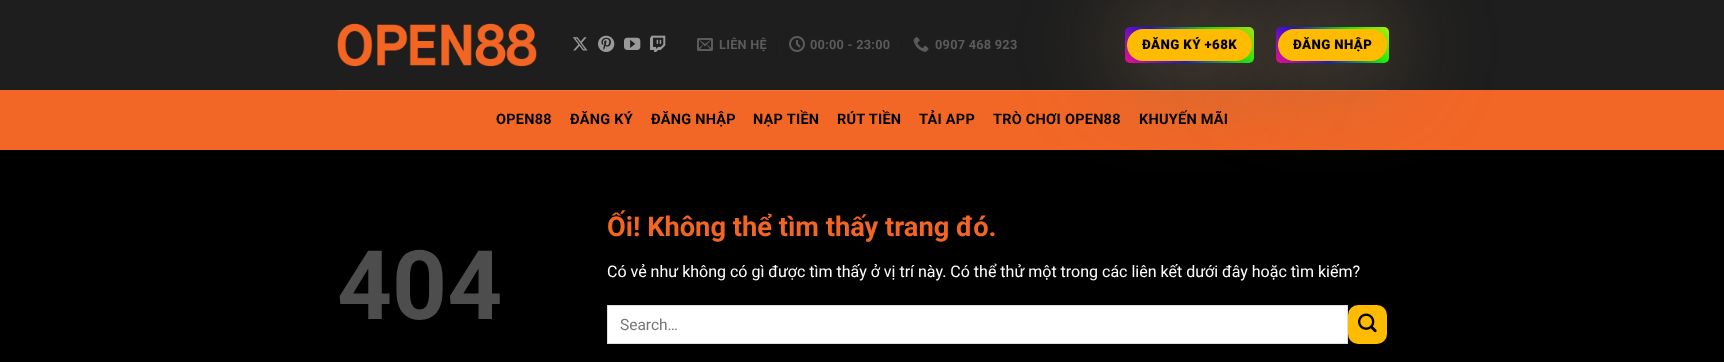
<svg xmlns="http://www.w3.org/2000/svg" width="1724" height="362">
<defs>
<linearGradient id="g1" gradientUnits="userSpaceOnUse" x1="1245" y1="183" x2="1521" y2="-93"><stop offset="0" stop-color="#fb0094"/><stop offset="0.11" stop-color="#00f"/><stop offset="0.22" stop-color="#0f0"/><stop offset="0.33" stop-color="#ff0"/><stop offset="0.44" stop-color="#f00"/><stop offset="0.56" stop-color="#fb0094"/><stop offset="0.67" stop-color="#00f"/><stop offset="0.78" stop-color="#0f0"/><stop offset="0.89" stop-color="#ff0"/><stop offset="1" stop-color="#f00"/></linearGradient>
<linearGradient id="g2" gradientUnits="userSpaceOnUse" x1="1380" y1="167" x2="1624" y2="-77"><stop offset="0" stop-color="#fb0094"/><stop offset="0.11" stop-color="#00f"/><stop offset="0.22" stop-color="#0f0"/><stop offset="0.33" stop-color="#ff0"/><stop offset="0.44" stop-color="#f00"/><stop offset="0.56" stop-color="#fb0094"/><stop offset="0.67" stop-color="#00f"/><stop offset="0.78" stop-color="#0f0"/><stop offset="0.89" stop-color="#ff0"/><stop offset="1" stop-color="#f00"/></linearGradient>
</defs>
<rect width="100%" height="100%" fill="#000"/>
<rect width="1724" height="90" fill="#1e1e1e"/>
<image x="337" y="23" width="200" height="44" href="media/1.png"/>
<image x="573" y="37" width="15" height="14" href="media/2.png"/>
<image x="598" y="35" width="17" height="17" href="media/3.png"/>
<image x="624" y="37" width="17" height="13" href="media/4.png"/>
<image x="650" y="35" width="16" height="17" href="media/5.png"/>
<image x="697" y="38" width="16" height="13" href="media/6.png"/>
<text x="719" y="49" style="font-family:Roboto;font-size:12.75px;font-weight:bold;letter-spacing:0.25px;fill:#5b5b5b">LIÊN HỆ</text>
<rect x="776" y="38" width="1" height="15" fill="#1b1b1b"/>
<image x="789" y="36" width="16" height="16" href="media/7.png"/>
<text x="810" y="49" style="font-family:Roboto;font-size:12.75px;font-weight:bold;letter-spacing:0.25px;fill:#5b5b5b">00:00 - 23:00</text>
<rect x="901" y="38" width="1" height="15" fill="#1b1b1b"/>
<image x="913" y="37" width="16" height="15" href="media/8.png"/>
<rect x="1125" y="27" width="129" height="36" rx="5" fill="url(#g1)"/>
<rect y="90" width="1724" height="60" fill="#f26726"/>
<rect x="1125" y="27" width="129" height="36" rx="5" fill="#8d7151" filter="blur(50px)"/>
<text x="935" y="49" style="font-family:Roboto;font-size:12.75px;font-weight:bold;letter-spacing:0.25px;fill:#5b5b5b">0907 468 923</text>
<rect x="1276" y="27" width="113" height="36" rx="5" fill="url(#g2)"/>
<rect x="1276" y="27" width="113" height="36" rx="5" fill="#8d7151" filter="blur(50px)"/>
<rect x="1127" y="29" width="125" height="32" rx="16" fill="#fb0"/>
<text x="1142" y="49" style="font-family:Roboto;font-size:13.25px;font-weight:900;letter-spacing:0.4px;fill:#000">ĐĂNG KÝ +68K</text>
<rect x="1278" y="29" width="109" height="32" rx="16" fill="#fb0"/>
<text x="1293" y="49" style="font-family:Roboto;font-size:13.25px;font-weight:900;letter-spacing:0.4px;fill:#000">ĐĂNG NHẬP</text>
<rect x="337" y="90" width="1050" height="1" fill="#ffffff1a"/>
<text x="496" y="124" style="font-family:Roboto;font-size:14.5px;font-weight:bold;letter-spacing:0.25px;fill:#000">OPEN88</text>
<text x="570" y="124" style="font-family:Roboto;font-size:14.5px;font-weight:bold;letter-spacing:0.25px;fill:#000">ĐĂNG KÝ</text>
<text x="651" y="124" style="font-family:Roboto;font-size:14.5px;font-weight:bold;letter-spacing:0.25px;fill:#000">ĐĂNG NHẬP</text>
<text x="753" y="124" style="font-family:Roboto;font-size:14.5px;font-weight:bold;letter-spacing:0.25px;fill:#000">NẠP TIỀN</text>
<text x="837" y="124" style="font-family:Roboto;font-size:14.5px;font-weight:bold;letter-spacing:0.25px;fill:#000">RÚT TIỀN</text>
<text x="919" y="124" style="font-family:Roboto;font-size:14.5px;font-weight:bold;letter-spacing:0.25px;fill:#000">TẢI APP</text>
<text x="993" y="124" style="font-family:Roboto;font-size:14.5px;font-weight:bold;letter-spacing:0.25px;fill:#000">TRÒ CHƠI OPEN88</text>
<text x="1139" y="124" style="font-family:Roboto;font-size:14.5px;font-weight:bold;letter-spacing:0.25px;fill:#000">KHUYẾN MÃI</text>
<text x="337" y="319" style="font-family:Roboto;font-size:96px;font-weight:bold;fill:#4d4d4d">404</text>
<text x="607" y="236" style="font-family:Roboto;font-size:27.25px;font-weight:bold;fill:#f26522">Ối! Không thể tìm thấy trang đó.</text>
<text x="607" y="277" style="font-family:Roboto;font-size:16px;fill:#fff">Có vẻ như không có gì được tìm thấy ở vị trí này. Có thể thử một trong các liên kết dưới đây hoặc tìm kiếm?</text>
<rect x="607.5" y="305.5" width="740" height="38" fill="#fff" stroke="#ddd"/>
<text x="620" y="330" style="font-family:Roboto;font-size:15.5px;fill:#757575">Search…</text>
<rect x="1348" y="305" width="39" height="39" rx="10" fill="#fb0"/>
<image x="1358" y="313" width="19" height="20" href="media/9.png"/>
</svg>
